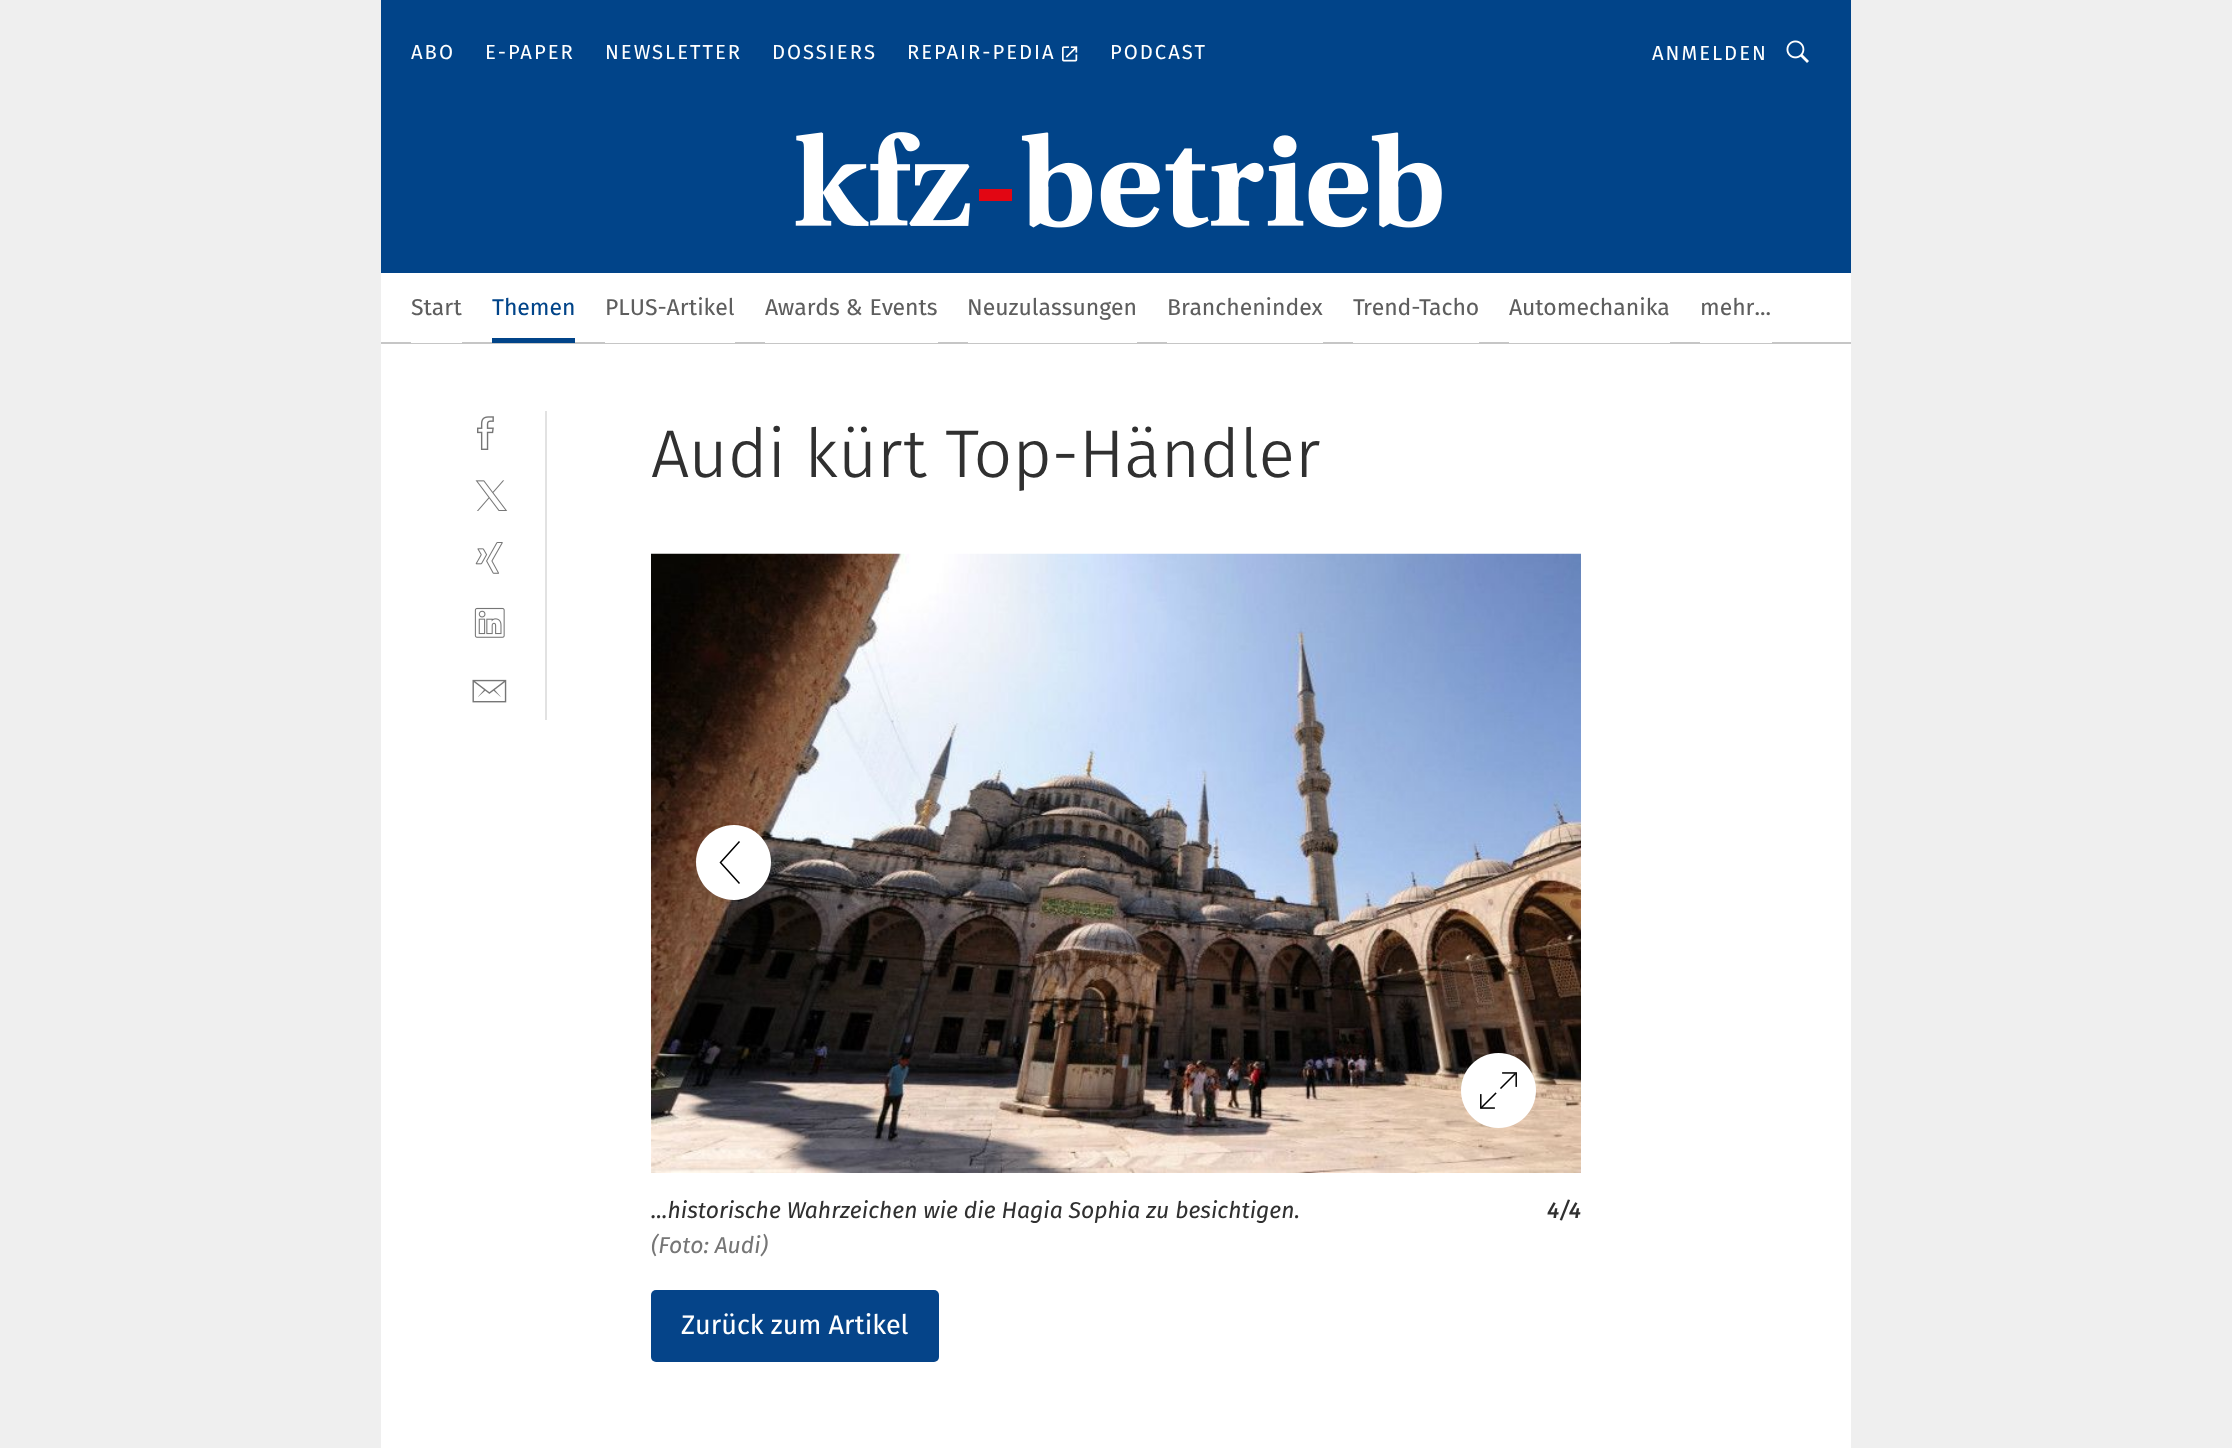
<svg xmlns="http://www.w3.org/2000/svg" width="2232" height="1448">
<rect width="100%" height="100%" fill="#efefef"/>
<rect x="381" y="344" width="1470" height="1104" fill="#fff"/>
<rect x="381" y="342" width="1470" height="2" fill="#c6c6c6"/>
<rect x="381" width="1470" height="273" fill="#014489"/>
<text x="411" y="59" style="font-family:'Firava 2';font-size:20.25px;letter-spacing:2px;fill:#fff">ABO</text>
<text x="485" y="59" style="font-family:'Firava 2';font-size:20.25px;letter-spacing:2px;fill:#fff">E-PAPER</text>
<text x="605" y="59" style="font-family:'Firava 2';font-size:20.25px;letter-spacing:2px;fill:#fff">NEWSLETTER</text>
<text x="772" y="59" style="font-family:'Firava 2';font-size:20.25px;letter-spacing:2px;fill:#fff">DOSSIERS</text>
<text x="907" y="59" style="font-family:'Firava 2';font-size:20.25px;letter-spacing:2px;fill:#fff">REPAIR-PEDIA</text>
<image x="1062" y="46" width="16" height="16" href="media/1.png"/>
<text x="1110" y="59" style="font-family:'Firava 2';font-size:20.25px;letter-spacing:2px;fill:#fff">PODCAST</text>
<text x="1652" y="60" style="font-family:'Firava 2';font-size:20.25px;letter-spacing:2px;fill:#fff">ANMELDEN</text>
<image x="1786" y="40" width="23" height="23" href="media/2.png"/>
<image x="795" y="132" width="647" height="96" href="media/3.png"/>
<rect x="381" y="273" width="1470" height="69" fill="#fff"/>
<rect x="411" y="342" width="51" height="1" fill="#fff"/>
<text x="411" y="315" style="font-family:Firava;font-size:22.95px;fill:#5e5e5e">Start</text>
<rect x="492" y="338" width="83" height="5" fill="#014489"/>
<text x="492" y="315" style="font-family:Firava;font-size:22.95px;fill:#014489">Themen</text>
<rect x="605" y="342" width="130" height="1" fill="#fff"/>
<text x="605" y="315" style="font-family:Firava;font-size:22.95px;fill:#5e5e5e">PLUS-Artikel</text>
<rect x="765" y="342" width="173" height="1" fill="#fff"/>
<text x="765" y="315" style="font-family:Firava;font-size:22.95px;fill:#5e5e5e">Awards &amp; Events</text>
<rect x="968" y="342" width="169" height="1" fill="#fff"/>
<text x="967" y="315" style="font-family:Firava;font-size:22.95px;fill:#5e5e5e">Neuzulassungen</text>
<rect x="1167" y="342" width="156" height="1" fill="#fff"/>
<text x="1167" y="315" style="font-family:Firava;font-size:22.95px;fill:#5e5e5e">Branchenindex</text>
<rect x="1353" y="342" width="126" height="1" fill="#fff"/>
<text x="1353" y="315" style="font-family:Firava;font-size:22.95px;fill:#5e5e5e">Trend-Tacho</text>
<rect x="1509" y="342" width="161" height="1" fill="#fff"/>
<text x="1509" y="315" style="font-family:Firava;font-size:22.95px;fill:#5e5e5e">Automechanika</text>
<rect x="1700" y="342" width="72" height="1" fill="#fff"/>
<text x="1700" y="315" style="font-family:Firava;font-size:22.95px;fill:#5e5e5e">mehr...</text>
<rect x="545" y="411" width="2" height="309" fill="#e2e2e2"/>
<image x="477" y="416" width="17" height="34" href="media/4.png"/>
<image x="475" y="480" width="33" height="31" href="media/5.png"/>
<image x="475" y="542" width="28" height="32" href="media/6.png"/>
<image x="474" y="607" width="31" height="31" href="media/7.png"/>
<image x="472" y="679" width="35" height="24" href="media/8.png"/>
<text x="651" y="477" style="font-family:Firava;font-size:67.5px;font-weight:300;fill:#303030">Audi kürt Top-Händler</text>
<image x="651" y="553" width="930" height="620" href="media/9.png"/>
<path d="M734 900c20 0 37-17 37-38c0-20-17-37-37-37c-21 0-38 17-38 37c0 21 17 38 38 38" fill="#fff"/>
<path d="M739.5 841.5l-19 21l19 21" fill="none" stroke="#000" stroke-width="1.5"/>
<image x="1461" y="1053" width="75" height="75" href="media/10.png"/>
<text x="651" y="1218" style="font-family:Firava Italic;font-size:22.95px;font-style:italic;fill:#303030">...historische Wahrzeichen wie die Hagia Sophia zu besichtigen.</text>
<text x="651" y="1253" style="font-family:Firava Italic;font-size:22.95px;font-style:italic;fill:#767676">(Foto: Audi)</text>
<text x="1547" y="1218" style="font-family:Firava Italic;font-size:22.95px;font-weight:500;font-style:italic;fill:#303030">4/4</text>
<rect x="651" y="1290" width="288" height="72" rx="5" fill="#054489"/>
<text x="681" y="1334" style="font-family:Firava;font-size:27px;fill:#fff">Zurück zum Artikel</text>
</svg>
